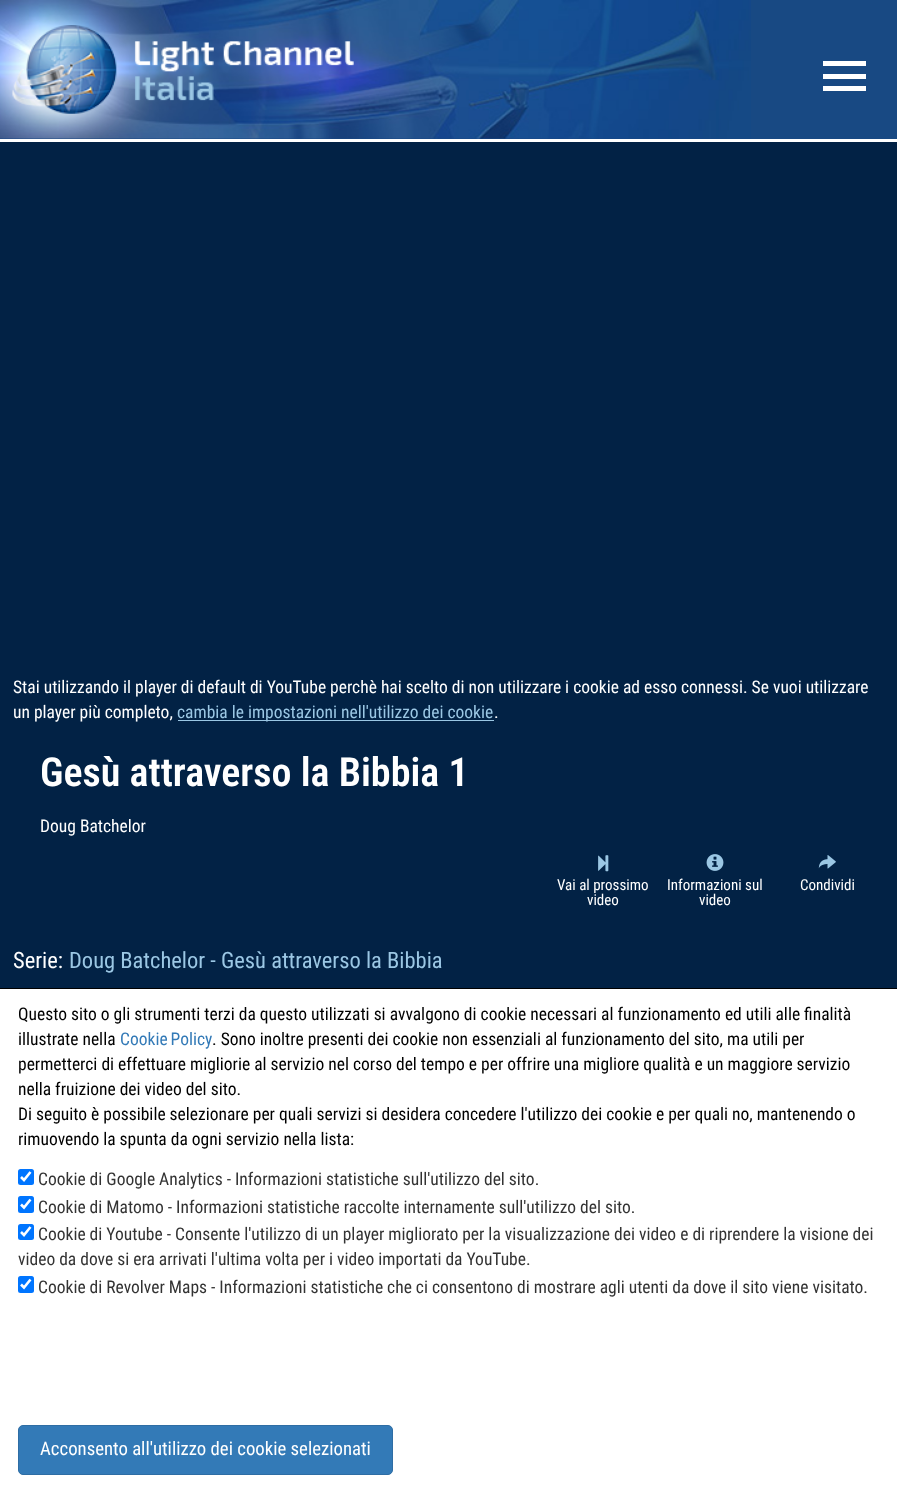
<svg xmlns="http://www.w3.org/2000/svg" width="897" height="1500">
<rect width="100%" height="100%" fill="#022245"/>
<rect width="897" height="139" fill="#184983"/>
<rect y="139" width="897" height="3" fill="#fff"/>
<image x="0" y="0" width="751" height="139" href="media/1.png"/>
<image x="12" y="25" width="342" height="89" href="media/2.png"/>
<rect x="823" y="61" width="43" height="5" fill="#fff"/>
<rect x="823" y="74" width="43" height="5" fill="#fff"/>
<rect x="823" y="86" width="43" height="5" fill="#fff"/>
<text x="13" y="693" style="font-family:Roboto Condensed;font-size:17.5px;fill:#fff">Stai utilizzando il player di default di YouTube perchè hai scelto di non utilizzare i cookie ad esso connessi. Se vuoi utilizzare</text>
<text x="13" y="718" style="font-family:Roboto Condensed;font-size:17.5px;fill:#fff">un player più completo,</text>
<rect x="178" y="720" width="316" height="1" fill="#9bc7e4"/>
<text x="177" y="718" style="font-family:Roboto Condensed;font-size:17.5px;fill:#9bc7e4">cambia le impostazioni nell'utilizzo dei cookie</text>
<text x="494" y="718" style="font-family:Roboto Condensed;font-size:17.5px;fill:#fff">.</text>
<text x="40" y="786" style="font-family:Roboto Condensed;font-size:40px;font-weight:600;fill:#fff">Gesù attraverso la Bibbia 1</text>
<text x="40" y="832" style="font-family:Roboto Condensed;font-size:17.5px;fill:#fff">Doug Batchelor</text>
<image x="598" y="855" width="11" height="17" href="media/3.png"/>
<text x="557" y="890" style="font-family:Roboto Condensed;font-size:15px;fill:#fff">Vai al prossimo</text>
<text x="587" y="905" style="font-family:Roboto Condensed;font-size:15px;fill:#fff">video</text>
<image x="706" y="854" width="18" height="17" href="media/4.png"/>
<text x="667" y="890" style="font-family:Roboto Condensed;font-size:15px;fill:#fff">Informazioni sul</text>
<text x="699" y="905" style="font-family:Roboto Condensed;font-size:15px;fill:#fff">video</text>
<image x="818" y="855" width="18" height="14" href="media/5.png"/>
<text x="800" y="890" style="font-family:Roboto Condensed;font-size:15px;fill:#fff">Condividi</text>
<text x="13" y="968" style="font-family:Roboto Condensed;font-size:22.5px;fill:#fff">Serie:</text>
<text x="69" y="968" style="font-family:Roboto Condensed;font-size:22.5px;fill:#9bc7e4">Doug Batchelor - Gesù attraverso la Bibbia</text>
<rect y="989" width="897" height="511" fill="#fff"/>
<rect y="988" width="897" height="1" fill="#000"/>
<text x="18" y="1020" style="font-family:Roboto Condensed;font-size:17.5px;fill:#000">Questo sito o gli strumenti terzi da questo utilizzati si avvalgono di cookie necessari al funzionamento ed utili alle finalità</text>
<text x="18" y="1045" style="font-family:Roboto Condensed;font-size:17.5px;fill:#000">illustrate nella</text>
<text x="120" y="1045" word-spacing="-1" style="font-family:Roboto Condensed;font-size:17.5px;fill:#337ab7">Cookie Policy</text>
<text x="212" y="1045" style="font-family:Roboto Condensed;font-size:17.5px;fill:#000">. Sono inoltre presenti dei cookie non essenziali al funzionamento del sito, ma utili per</text>
<text x="18" y="1070" style="font-family:Roboto Condensed;font-size:17.5px;fill:#000">permetterci di effettuare migliorie al servizio nel corso del tempo e per offrire una migliore qualità e un maggiore servizio</text>
<text x="18" y="1095" style="font-family:Roboto Condensed;font-size:17.5px;fill:#000">nella fruizione dei video del sito.</text>
<text x="18" y="1120" style="font-family:Roboto Condensed;font-size:17.5px;fill:#000">Di seguito è possibile selezionare per quali servizi si desidera concedere l'utilizzo dei cookie e per quali no, mantenendo o</text>
<text x="18" y="1145" style="font-family:Roboto Condensed;font-size:17.5px;fill:#000">rimuovendo la spunta da ogni servizio nella lista:</text>
<rect x="18" y="1169" width="16" height="16" rx="2.5" fill="#0075ff"/>
<path d="M21 1177l3 3l6.5-8" fill="none" stroke="#fff" stroke-width="2.6"/>
<text x="38" y="1185" style="font-family:Roboto Condensed;font-size:17.5px;fill:#333">Cookie di Google Analytics - Informazioni statistiche sull'utilizzo del sito.</text>
<rect x="18" y="1196" width="16" height="17" rx="2.5" fill="#0075ff"/>
<path d="M21 1204.5l3 3l6.5-8" fill="none" stroke="#fff" stroke-width="2.6"/>
<text x="38" y="1213" style="font-family:Roboto Condensed;font-size:17.5px;fill:#333">Cookie di Matomo - Informazioni statistiche raccolte internamente sull'utilizzo del sito.</text>
<rect x="18" y="1224" width="16" height="16" rx="2.5" fill="#0075ff"/>
<path d="M21 1232l3 3l6.5-8" fill="none" stroke="#fff" stroke-width="2.6"/>
<text x="38" y="1240" style="font-family:Roboto Condensed;font-size:17.5px;fill:#333">Cookie di Youtube - Consente l'utilizzo di un player migliorato per la visualizzazione dei video e di riprendere la visione dei</text>
<text x="18" y="1265" style="font-family:Roboto Condensed;font-size:17.5px;fill:#333">video da dove si era arrivati l'ultima volta per i video importati da YouTube.</text>
<rect x="18" y="1276" width="16" height="17" rx="2.5" fill="#0075ff"/>
<path d="M21 1284.5l3 3l6.5-8" fill="none" stroke="#fff" stroke-width="2.6"/>
<text x="38" y="1293" style="font-family:Roboto Condensed;font-size:17.5px;fill:#333">Cookie di Revolver Maps - Informazioni statistiche che ci consentono di mostrare agli utenti da dove il sito viene visitato.</text>
<rect x="18.5" y="1425.5" width="374" height="49" rx="4.5" fill="#337ab7" stroke="#2e6da4"/>
<text x="40" y="1455" style="font-family:Roboto Condensed;font-size:18.75px;fill:#fff">Acconsento all'utilizzo dei cookie selezionati</text>
</svg>
